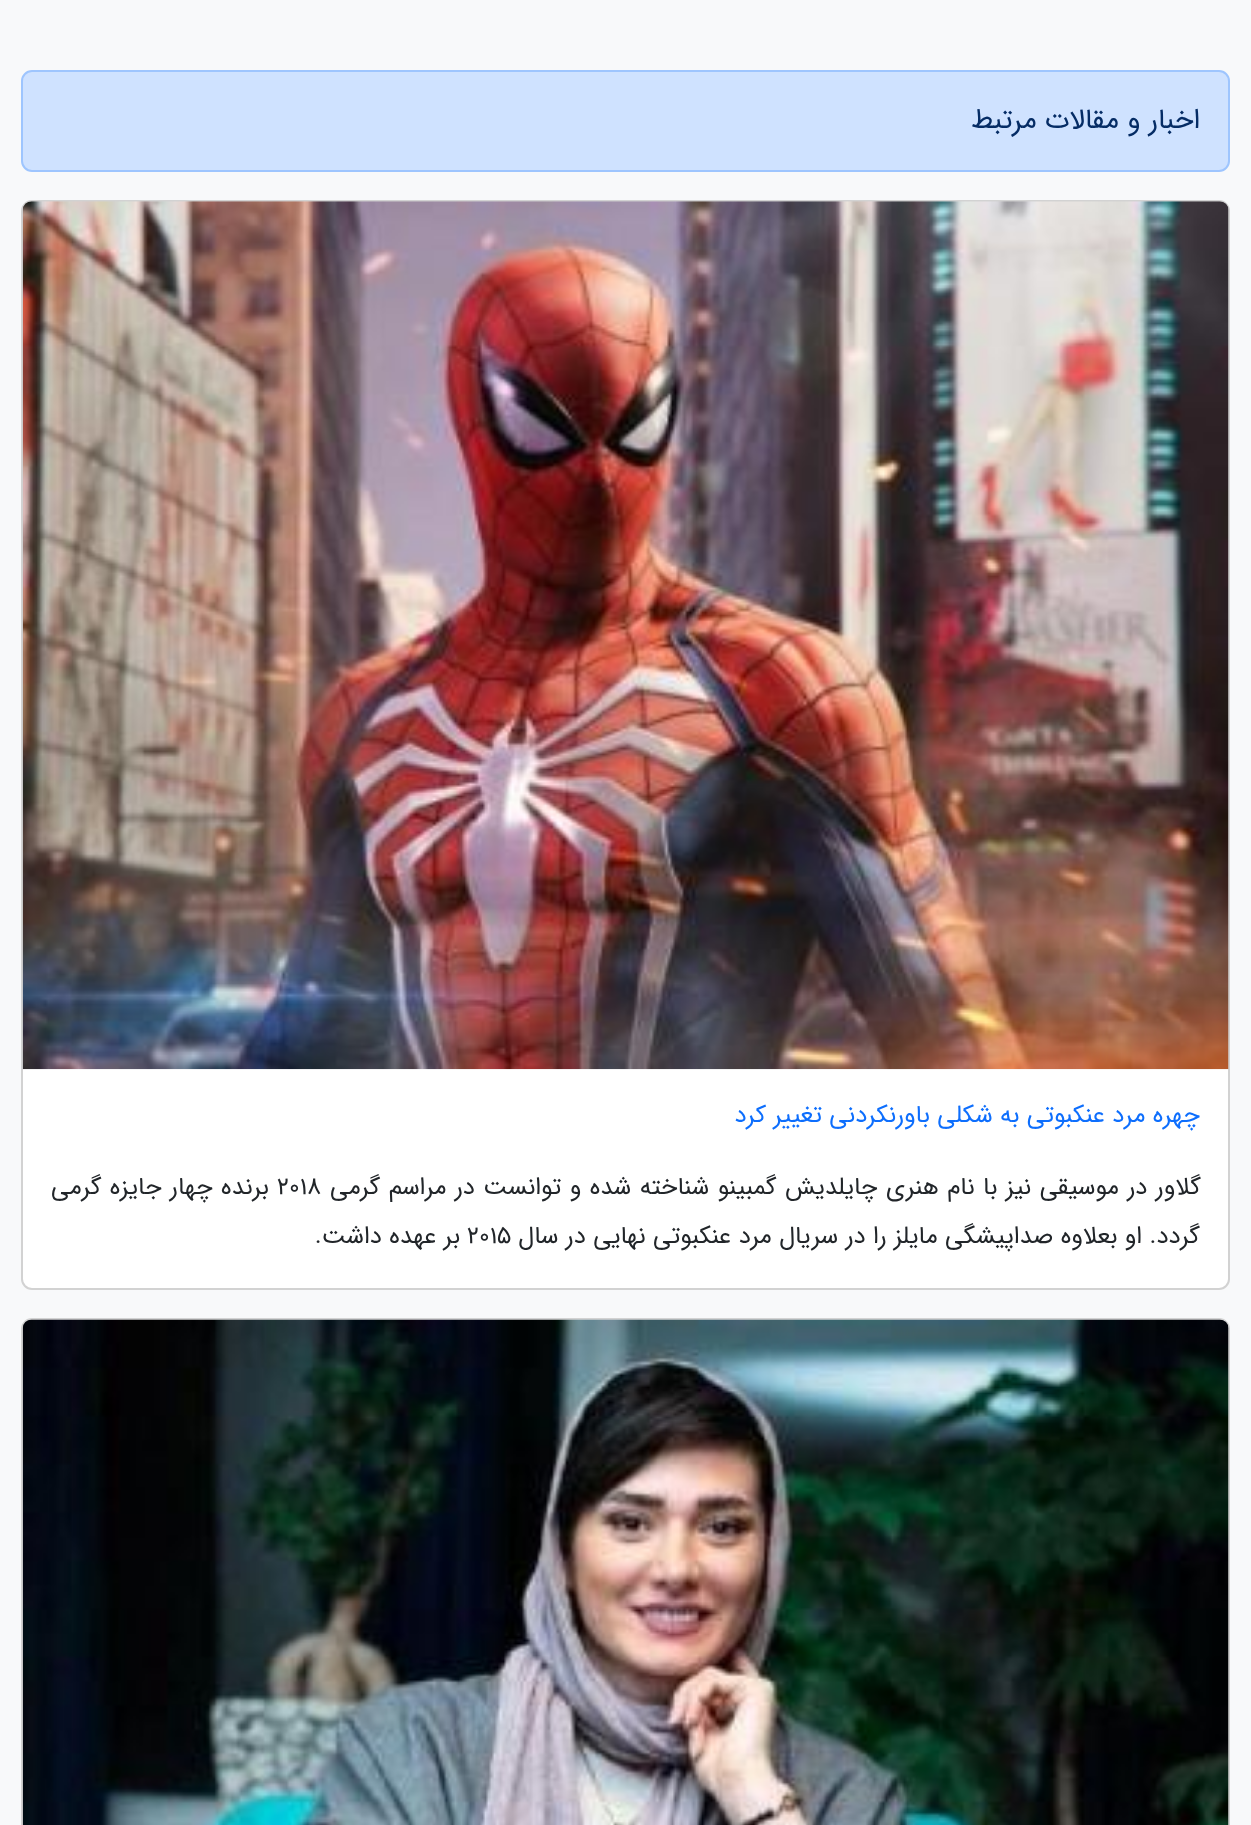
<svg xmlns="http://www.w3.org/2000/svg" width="1251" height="1825">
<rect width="100%" height="100%" fill="#f8f9fa"/>
<rect x="22" y="71" width="1207" height="100" rx="10" fill="#cfe2ff" stroke="#9ec5fe" stroke-width="2"/>
<text x="1200" y="128" style="font-family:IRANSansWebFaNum;font-size:28px;direction:rtl;fill:#052c65">اخبار و مقالات مرتبط</text>
<rect x="22" y="201" width="1207" height="1088" rx="10" fill="#fff" stroke="#d2d2d2" stroke-width="2"/>
<image x="22" y="201" width="1207" height="869" href="media/1.png"/>
<text x="1200" y="1122" style="font-family:IRANSansWebFaNum;font-size:24.5px;direction:rtl;fill:#0d6efd">چهره مرد عنکبوتی به شکلی باورنکردنی تغییر کرد</text>
<text x="1201" y="1194" word-spacing="1.1" style="font-family:IRANSansWebFaNum;font-size:24.5px;direction:rtl;fill:#212529">گلاور در موسیقی نیز با نام هنری چایلدیش گمبینو شناخته شده و توانست در مراسم گرمی</text>
<text x="277" y="1194" style="font-family:IRANSansWebFaNum;font-size:24.5px;fill:#212529">2018</text>
<text x="269" y="1194" word-spacing="1.1" style="font-family:IRANSansWebFaNum;font-size:24.5px;direction:rtl;fill:#212529">برنده چهار جایزه گرمی</text>
<text x="1200" y="1243" style="font-family:IRANSansWebFaNum;font-size:24.5px;direction:rtl;fill:#212529">گردد. او بعلاوه صداپیشگی مایلز را در سریال مرد عنکبوتی نهایی در سال</text>
<text x="467" y="1243" style="font-family:IRANSansWebFaNum;font-size:24.5px;fill:#212529">2015</text>
<text x="460" y="1243" style="font-family:IRANSansWebFaNum;font-size:24.5px;direction:rtl;fill:#212529">بر عهده داشت.</text>
<rect x="22" y="1319" width="1207" height="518" rx="10" fill="none" stroke="#d2d2d2" stroke-width="2"/>
<image x="22" y="1319" width="1207" height="506" href="media/2.png"/>
</svg>
